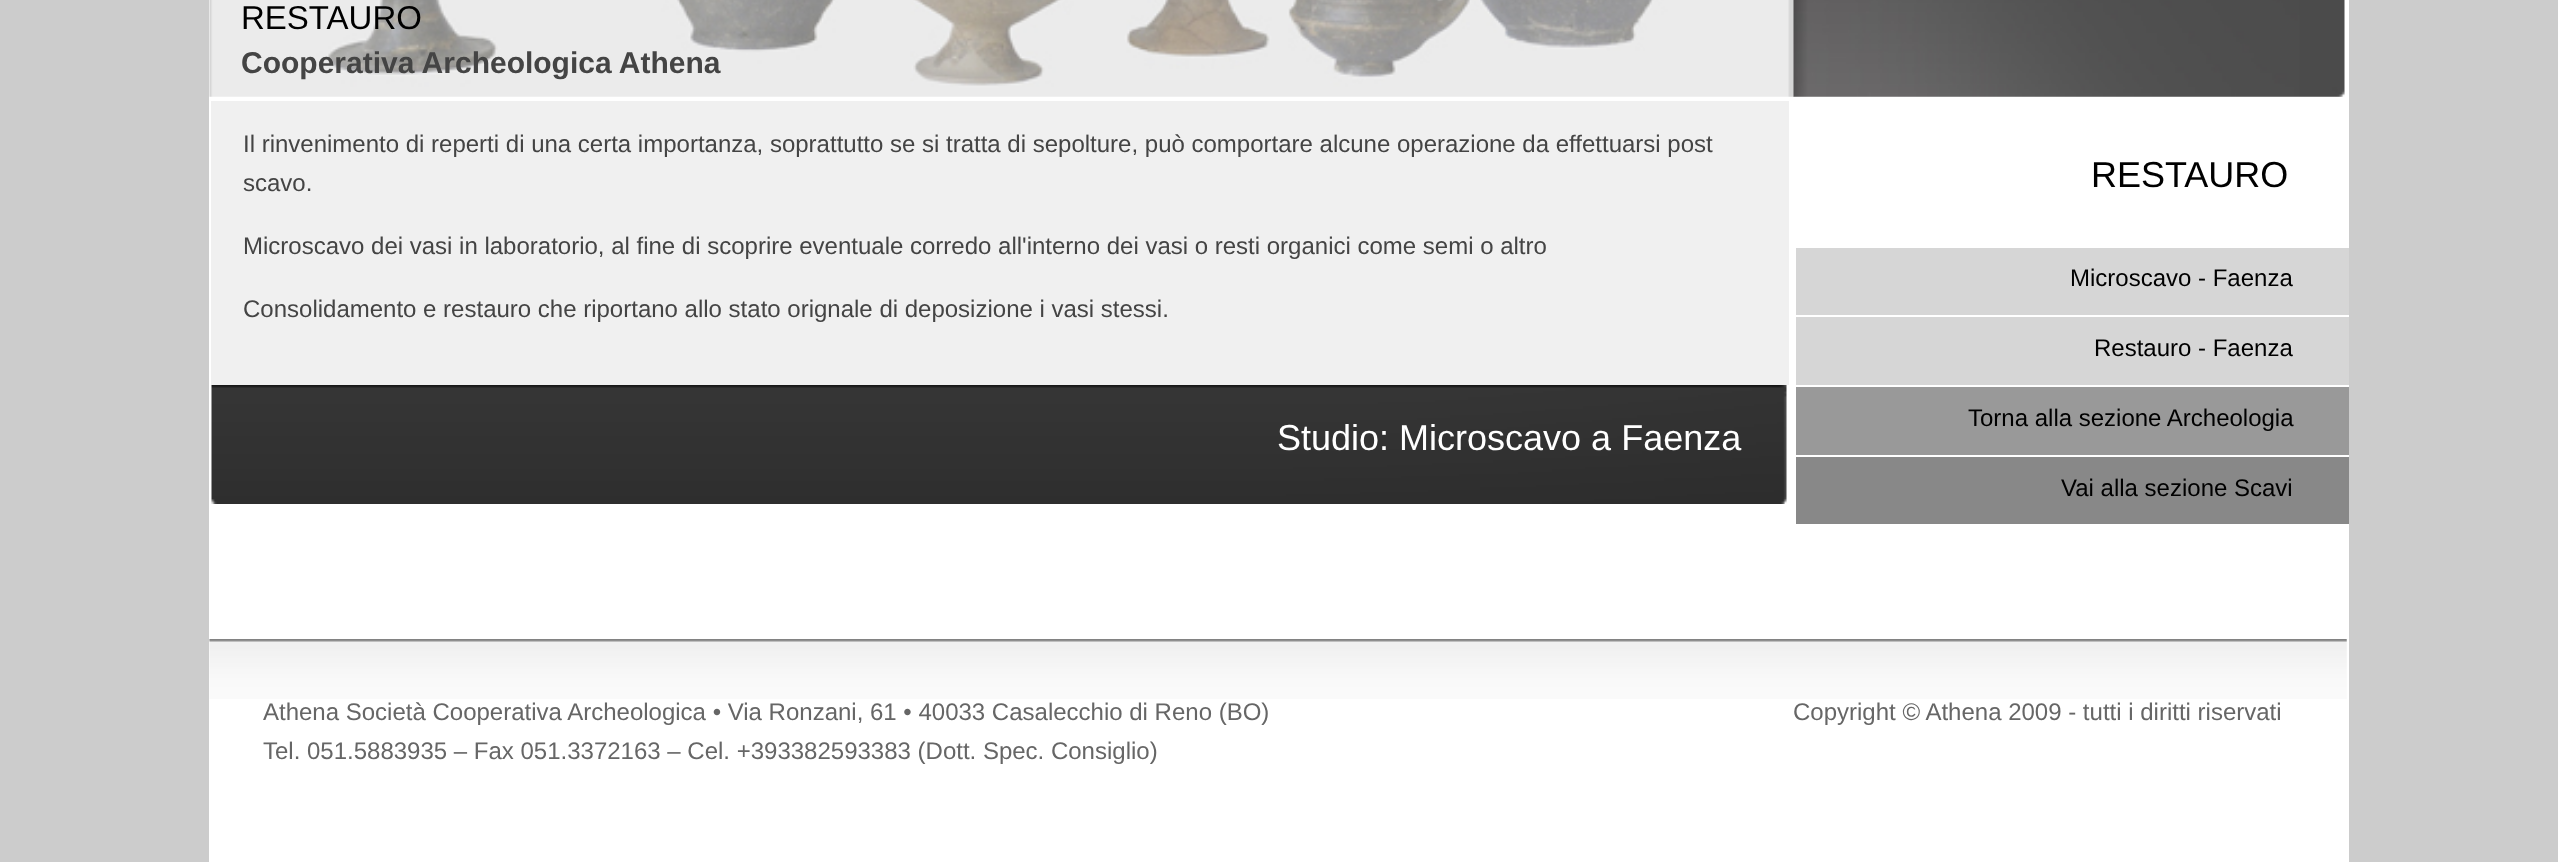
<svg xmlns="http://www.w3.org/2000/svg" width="2558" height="862">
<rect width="100%" height="100%" fill="#ccc"/>
<rect x="209" width="2140" height="862" fill="#fff"/>
<image x="1793" y="0" width="552" height="97" href="media/2.png"/>
<image x="209" y="0" width="1585" height="97" href="media/1.png"/>
<text x="241" y="29" style="font-family:Liberation Sans;font-size:33px;fill:#000">RESTAURO</text>
<text x="241" y="73" style="font-family:Liberation Sans;font-size:30px;font-weight:bold;fill:#444">Cooperativa Archeologica Athena</text>
<rect x="211" y="101" width="1578" height="284" fill="#f0f0f0"/>
<text x="243" y="152" style="font-family:Liberation Sans;font-size:24px;fill:#444">Il rinvenimento di reperti di una certa importanza, soprattutto se si tratta di sepolture, può comportare alcune operazione da effettuarsi post</text>
<text x="243" y="191" style="font-family:Liberation Sans;font-size:24px;fill:#444">scavo.</text>
<text x="243" y="254" style="font-family:Liberation Sans;font-size:24px;fill:#444">Microscavo dei vasi in laboratorio, al fine di scoprire eventuale corredo all'interno dei vasi o resti organici come semi o altro</text>
<text x="243" y="317" style="font-family:Liberation Sans;font-size:24px;fill:#444">Consolidamento e restauro che riportano allo stato orignale di deposizione i vasi stessi.</text>
<image x="211" y="385" width="1576" height="119" href="media/3.png"/>
<text x="1277" y="450" style="font-family:Liberation Sans;font-size:36px;fill:#fff">Studio: Microscavo a Faenza</text>
<text x="2091" y="187" style="font-family:Liberation Sans;font-size:36px;fill:#000">RESTAURO</text>
<rect x="1796" y="248" width="553" height="67" fill="#d6d6d6"/>
<text x="2070" y="286" style="font-family:Liberation Sans;font-size:24px;fill:#000">Microscavo - Faenza</text>
<rect x="1796" y="317" width="553" height="68" fill="#d6d6d6"/>
<text x="2094" y="356" style="font-family:Liberation Sans;font-size:24px;fill:#000">Restauro - Faenza</text>
<rect x="1796" y="387" width="553" height="68" fill="#999"/>
<text x="1968" y="426" style="font-family:Liberation Sans;font-size:24px;fill:#000">Torna alla sezione Archeologia</text>
<rect x="1796" y="457" width="553" height="67" fill="#888"/>
<text x="2061" y="496" style="font-family:Liberation Sans;font-size:24px;fill:#000">Vai alla sezione Scavi</text>
<image x="209" y="639" width="2138" height="60" href="media/4.png"/>
<text x="263" y="720" style="font-family:Liberation Sans;font-size:24px;fill:#666">Athena Società Cooperativa Archeologica • Via Ronzani, 61 • 40033 Casalecchio di Reno (BO)</text>
<text x="263" y="759" style="font-family:Liberation Sans;font-size:24px;fill:#666">Tel. 051.5883935 – Fax 051.3372163 – Cel. +393382593383 (Dott. Spec. Consiglio)</text>
<text x="1793" y="720" style="font-family:Liberation Sans;font-size:24px;fill:#666">Copyright © Athena 2009 - tutti i diritti riservati</text>
</svg>
